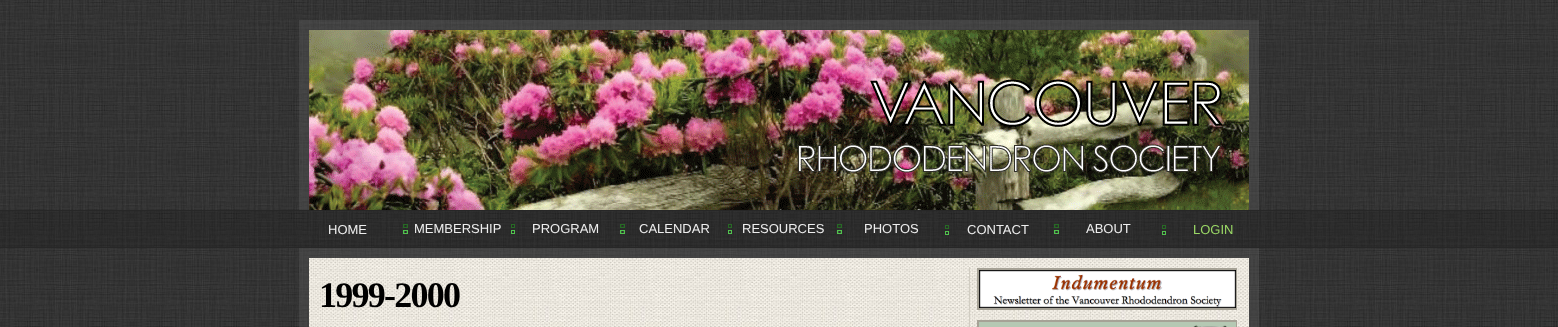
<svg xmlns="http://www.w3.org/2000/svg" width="1558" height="327">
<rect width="100%" height="100%" fill="#fff"/>
<image x="0" y="0" width="1558" height="327" href="media/1.png"/>
<rect x="299" y="20" width="960" height="190" fill="#6868684d"/>
<image x="309" y="30" width="940" height="180" href="media/2.png"/>
<rect y="211" width="1558" height="36" fill="#1919194d"/>
<rect y="210" width="1558" height="1" fill="#272727"/>
<rect y="247" width="1558" height="1" fill="#272727"/>
<text x="328" y="234" style="font-family:Liberation Sans;font-size:13px;fill:#eee">HOME</text>
<image x="403" y="224" width="5" height="10" href="media/3.png"/>
<text x="414" y="233" style="font-family:Liberation Sans;font-size:13px;fill:#eee">MEMBERSHIP</text>
<image x="511" y="224" width="4" height="10" href="media/4.png"/>
<text x="532" y="233" style="font-family:Liberation Sans;font-size:13px;fill:#eee">PROGRAM</text>
<image x="620" y="224" width="5" height="10" href="media/5.png"/>
<text x="639" y="233" style="font-family:Liberation Sans;font-size:13px;fill:#eee">CALENDAR</text>
<image x="728" y="224" width="4" height="10" href="media/6.png"/>
<text x="742" y="233" style="font-family:Liberation Sans;font-size:13px;fill:#eee">RESOURCES</text>
<image x="837" y="224" width="5" height="10" href="media/7.png"/>
<text x="864" y="233" style="font-family:Liberation Sans;font-size:13px;fill:#eee">PHOTOS</text>
<image x="945" y="225" width="4" height="10" href="media/8.png"/>
<text x="967" y="234" style="font-family:Liberation Sans;font-size:13px;fill:#eee">CONTACT</text>
<image x="1054" y="224" width="5" height="10" href="media/9.png"/>
<text x="1086" y="233" style="font-family:Liberation Sans;font-size:13px;fill:#eee">ABOUT</text>
<image x="1162" y="225" width="4" height="10" href="media/10.png"/>
<text x="1193" y="234" style="font-family:Liberation Sans;font-size:13px;fill:#9bd966">LOGIN</text>
<rect x="299" y="248" width="960" height="79" fill="#6868684d"/>
<image x="309" y="258" width="940" height="69" href="media/11.png"/>
<text x="319" y="307" style="font-family:Liberation Serif;font-size:36px;font-weight:bold;letter-spacing:-1.75px;fill:#000">1999-2000</text>
<rect x="969" y="267" width="1" height="60" fill="#d1cdc2"/>
<rect x="978" y="269" width="258" height="40" fill="none" stroke="#a6a296" stroke-width="2"/>
<image x="979" y="270" width="257" height="38" href="media/12.png"/>
<rect x="978" y="321" width="258" height="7" fill="none" stroke="#a6a296" stroke-width="2"/>
<image x="979" y="322" width="257" height="5" href="media/13.png"/>
</svg>
